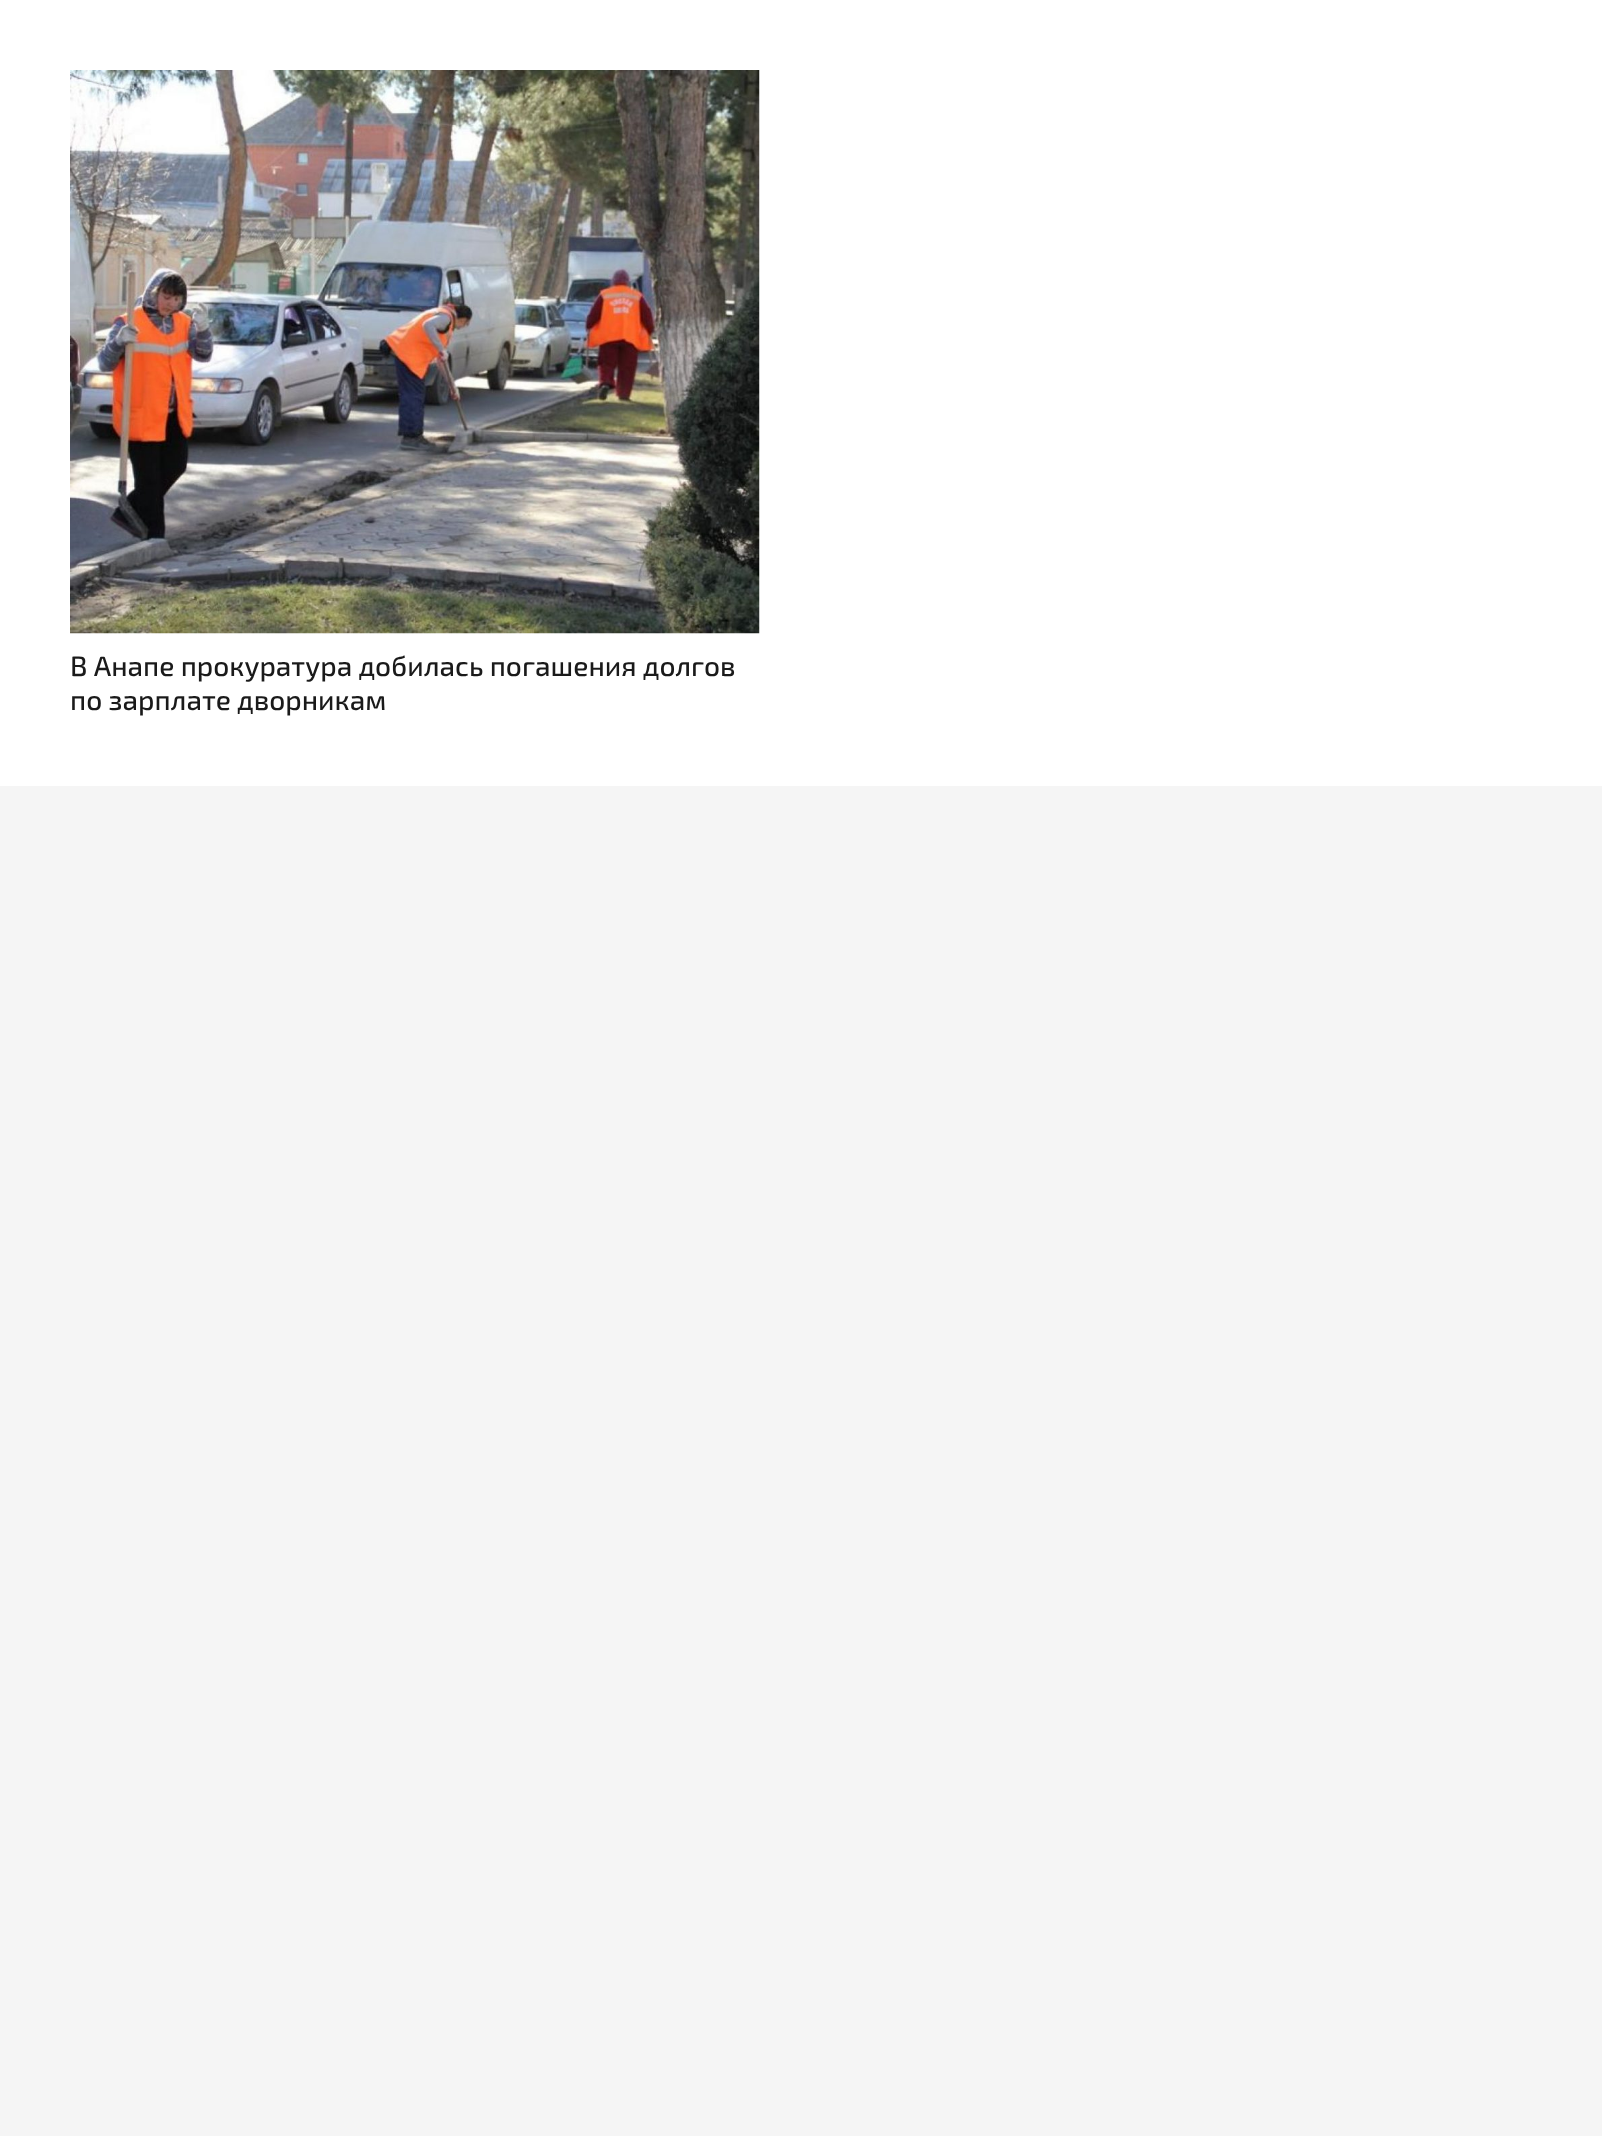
<svg xmlns="http://www.w3.org/2000/svg" width="1602" height="2136">
<rect width="100%" height="100%" fill="#f5f5f5"/>
<rect width="1602" height="786" fill="#fff"/>
<image x="70" y="70" width="690" height="564" href="media/1.png"/>
<text x="70" y="676" style="font-family:'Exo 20';font-size:28px;font-weight:500;fill:#1a1a1a">В Анапе прокуратура добилась погашения долгов</text>
<text x="70" y="710" style="font-family:'Exo 20';font-size:28px;font-weight:500;fill:#1a1a1a">по зарплате дворникам</text>
</svg>
